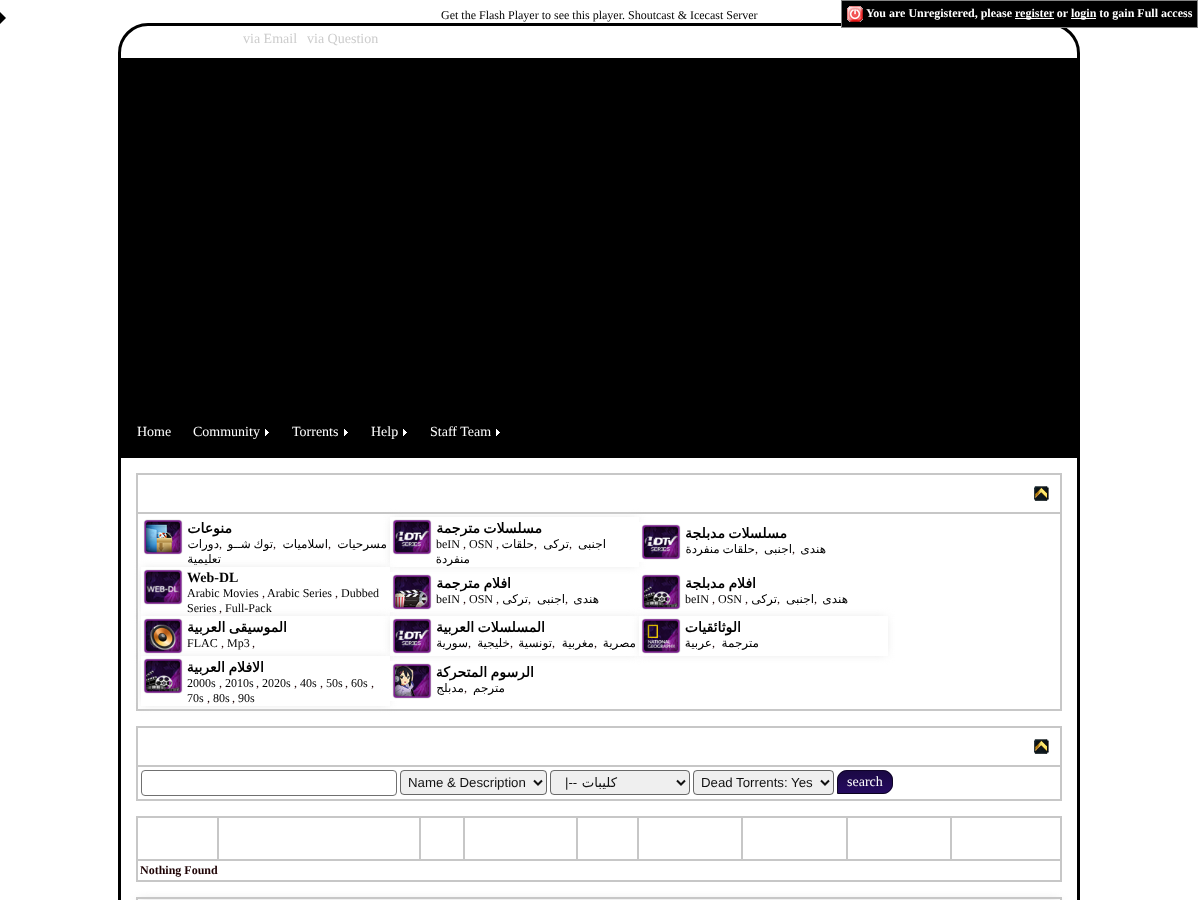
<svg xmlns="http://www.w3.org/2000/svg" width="1198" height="900">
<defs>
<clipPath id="clip1"><path d="M847 770h36c5.5 0 10 4.5 10 10v4c0 5.5-4.5 10-10 10h-45c-.5 0-1-.5-1-1v-13c0-5.5 4.5-10 10-10z"/></clipPath>
<linearGradient id="g1" gradientUnits="userSpaceOnUse" x1="865" y1="749" x2="865" y2="771"><stop offset="0" stop-color="#1b0944"/><stop offset="1" stop-color="#260b60"/></linearGradient>
<linearGradient id="g2" gradientUnits="userSpaceOnUse" x1="865" y1="771" x2="865" y2="793"><stop offset="0" stop-color="#1b0944"/><stop offset="1" stop-color="#260b60"/></linearGradient>
<linearGradient id="g3" gradientUnits="userSpaceOnUse" x1="865" y1="793" x2="865" y2="815"><stop offset="0" stop-color="#1b0944"/><stop offset="1" stop-color="#260b60"/></linearGradient>
</defs>
<rect width="100%" height="100%" fill="#fff"/>
<text x="441" y="19" style="font-family:Liberation Serif;font-size:12px;fill:#000">Get the Flash Player to see this player. Shoutcast &amp; Icecast Server</text>
<rect x="119.5" y="24.5" width="959" height="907" rx="28.5" fill="none" stroke="#000" stroke-width="3"/>
<rect x="841.5" y="0.5" width="356" height="27" fill="#000" stroke="#848484"/>
<image x="847" y="6" width="16" height="16" href="media/1.png"/>
<text x="866" y="17" style="font-family:Liberation Serif;font-size:12px;font-weight:bold;fill:#fff">You are Unregistered, please</text>
<rect x="1015" y="18" width="39" height="1" fill="#fff"/>
<text x="1015" y="17" style="font-family:Liberation Serif;font-size:12px;font-weight:bold;fill:#fff">register or</text>
<rect x="1071" y="18" width="25" height="1" fill="#fff"/>
<text x="1071" y="17" style="font-family:Liberation Serif;font-size:12px;font-weight:bold;fill:#fff">login to gain Full access</text>
<text x="243" y="43" style="font-family:Liberation Serif;font-size:14px;fill:#ccc">via Email</text>
<text x="307" y="43" style="font-family:Liberation Serif;font-size:14px;fill:#ccc">via Question</text>
<rect x="121" y="58" width="956" height="400" fill="#000"/>
<text x="137" y="436" style="font-family:Liberation Serif;font-size:14px;fill:#fff">Home</text>
<image x="265" y="429" width="4" height="7" href="media/2.png"/>
<text x="193" y="436" style="font-family:Liberation Serif;font-size:14px;fill:#fff">Community</text>
<image x="344" y="429" width="4" height="7" href="media/2.png"/>
<text x="292" y="436" style="font-family:Liberation Serif;font-size:14px;fill:#fff">Torrents</text>
<image x="403" y="429" width="4" height="7" href="media/2.png"/>
<text x="371" y="436" style="font-family:Liberation Serif;font-size:14px;fill:#fff">Help</text>
<path d="M0 24v-12l6 6z" fill="#000"/>
<image x="496" y="429" width="4" height="7" href="media/2.png"/>
<text x="430" y="436" style="font-family:Liberation Serif;font-size:14px;fill:#fff">Staff Team</text>
<rect x="136" y="473" width="926" height="2" fill="#c7c7c7"/>
<rect x="136" y="512" width="926" height="2" fill="#c7c7c7"/>
<rect x="1060" y="512" width="2" height="199" fill="#c7c7c7"/>
<rect x="1060" y="473" width="2" height="41" fill="#c7c7c7"/>
<rect x="136" y="709" width="926" height="2" fill="#c7c7c7"/>
<rect x="136" y="512" width="2" height="199" fill="#c7c7c7"/>
<rect x="136" y="473" width="2" height="41" fill="#c7c7c7"/>
<image x="1034" y="486" width="15" height="15" href="media/3.png"/>
<rect x="392" y="519" width="245" height="46" fill="#e0e0e0" filter="blur(5px)"/>
<rect x="390" y="517" width="249" height="50" fill="#fff"/>
<rect x="143" y="569" width="245" height="45" fill="#e0e0e0" filter="blur(5px)"/>
<image x="143" y="519" width="40" height="36" href="media/4.png"/>
<text x="232" y="533" style="font-family:DejaVu Sans;font-size:14px;font-weight:bold;direction:rtl;fill:#000">منوعات</text>
<text x="219" y="548" style="font-family:DejaVu Sans;font-size:12px;direction:rtl;fill:#000">دورات</text>
<text x="219" y="548" style="font-family:Liberation Serif;font-size:12px;fill:#1e0305">,</text>
<text x="273" y="548" style="font-family:Liberation Serif;font-size:12px;fill:#1e0305">,</text>
<text x="273" y="548" word-spacing="-1" style="font-family:DejaVu Sans;font-size:12px;direction:rtl;fill:#000">توك شــو</text>
<text x="328" y="548" style="font-family:DejaVu Sans;font-size:12px;direction:rtl;fill:#000">اسلاميات</text>
<text x="328" y="548" style="font-family:Liberation Serif;font-size:12px;fill:#1e0305">,</text>
<text x="387" y="548" style="font-family:DejaVu Sans;font-size:12px;direction:rtl;fill:#000">مسرحيات</text>
<text x="221" y="563" style="font-family:DejaVu Sans;font-size:12px;direction:rtl;fill:#000">تعليمية</text>
<image x="392" y="519" width="40" height="36" href="media/5.png"/>
<text x="542" y="533" word-spacing="-1" style="font-family:DejaVu Sans;font-size:14px;font-weight:bold;direction:rtl;fill:#000">مسلسلات مترجمة</text>
<text x="436" y="548" style="font-family:Liberation Serif;font-size:12px;fill:#000">beIN</text>
<text x="463" y="548" style="font-family:Liberation Serif;font-size:12px;fill:#1e0305">,</text>
<text x="469" y="548" style="font-family:Liberation Serif;font-size:12px;fill:#000">OSN</text>
<text x="496" y="548" style="font-family:Liberation Serif;font-size:12px;fill:#1e0305">,</text>
<text x="534" y="548" style="font-family:DejaVu Sans;font-size:12px;direction:rtl;fill:#000">حلقات</text>
<text x="534" y="548" style="font-family:Liberation Serif;font-size:12px;fill:#1e0305">,</text>
<text x="569" y="548" style="font-family:DejaVu Sans;font-size:12px;direction:rtl;fill:#000">تركى</text>
<text x="569" y="548" style="font-family:Liberation Serif;font-size:12px;fill:#1e0305">,</text>
<text x="606" y="548" style="font-family:DejaVu Sans;font-size:12px;direction:rtl;fill:#000">اجنبى</text>
<text x="470" y="563" style="font-family:DejaVu Sans;font-size:12px;direction:rtl;fill:#000">منفردة</text>
<rect x="639" y="522" width="5" height="40" fill="#fff"/>
<image x="641" y="524" width="40" height="36" href="media/6.png"/>
<text x="787" y="538" word-spacing="-1" style="font-family:DejaVu Sans;font-size:14px;font-weight:bold;direction:rtl;fill:#000">مسلسلات مدبلجة</text>
<text x="755" y="553" word-spacing="-1" style="font-family:DejaVu Sans;font-size:12px;direction:rtl;fill:#000">حلقات منفردة</text>
<text x="755" y="553" style="font-family:Liberation Serif;font-size:12px;fill:#1e0305">,</text>
<text x="792" y="553" style="font-family:DejaVu Sans;font-size:12px;direction:rtl;fill:#000">اجنبى</text>
<text x="792" y="553" style="font-family:Liberation Serif;font-size:12px;fill:#1e0305">,</text>
<text x="826" y="553" style="font-family:DejaVu Sans;font-size:12px;direction:rtl;fill:#000">هندى</text>
<rect x="141" y="567" width="249" height="49" fill="#fff"/>
<rect x="390" y="572" width="7" height="40" fill="#fff"/>
<rect x="143" y="618" width="245" height="36" fill="#e0e0e0" filter="blur(5px)"/>
<image x="143" y="569" width="40" height="36" href="media/7.png"/>
<text x="187" y="582" style="font-family:Liberation Serif;font-size:14px;font-weight:bold;fill:#000">Web-DL</text>
<text x="187" y="597" style="font-family:Liberation Serif;font-size:12px;fill:#000">Arabic Movies</text>
<text x="262" y="597" style="font-family:Liberation Serif;font-size:12px;fill:#1e0305">,</text>
<text x="267" y="597" style="font-family:Liberation Serif;font-size:12px;fill:#000">Arabic Series</text>
<text x="335" y="597" style="font-family:Liberation Serif;font-size:12px;fill:#1e0305">,</text>
<text x="341" y="597" style="font-family:Liberation Serif;font-size:12px;fill:#000">Dubbed</text>
<text x="187" y="612" style="font-family:Liberation Serif;font-size:12px;fill:#000">Series</text>
<text x="219" y="612" style="font-family:Liberation Serif;font-size:12px;fill:#1e0305">,</text>
<text x="225" y="612" style="font-family:Liberation Serif;font-size:12px;fill:#000">Full-Pack</text>
<rect x="141" y="616" width="249" height="40" fill="#fff"/>
<rect x="392" y="618" width="245" height="36" fill="#e0e0e0" filter="blur(5px)"/>
<image x="392" y="574" width="40" height="36" href="media/8.png"/>
<text x="511" y="588" word-spacing="-1" style="font-family:DejaVu Sans;font-size:14px;font-weight:bold;direction:rtl;fill:#000">افلام مترجمة</text>
<text x="436" y="603" style="font-family:Liberation Serif;font-size:12px;fill:#000">beIN</text>
<text x="463" y="603" style="font-family:Liberation Serif;font-size:12px;fill:#1e0305">,</text>
<text x="469" y="603" style="font-family:Liberation Serif;font-size:12px;fill:#000">OSN</text>
<text x="496" y="603" style="font-family:Liberation Serif;font-size:12px;fill:#1e0305">,</text>
<text x="528" y="603" style="font-family:DejaVu Sans;font-size:12px;direction:rtl;fill:#000">تركى</text>
<text x="528" y="603" style="font-family:Liberation Serif;font-size:12px;fill:#1e0305">,</text>
<text x="565" y="603" style="font-family:DejaVu Sans;font-size:12px;direction:rtl;fill:#000">اجنبى</text>
<text x="565" y="603" style="font-family:Liberation Serif;font-size:12px;fill:#1e0305">,</text>
<text x="599" y="603" style="font-family:DejaVu Sans;font-size:12px;direction:rtl;fill:#000">هندى</text>
<rect x="390" y="616" width="249" height="40" fill="#fff"/>
<rect x="641" y="618" width="245" height="36" fill="#e0e0e0" filter="blur(5px)"/>
<image x="641" y="574" width="40" height="36" href="media/9.png"/>
<text x="756" y="588" word-spacing="-1" style="font-family:DejaVu Sans;font-size:14px;font-weight:bold;direction:rtl;fill:#000">افلام مدبلجة</text>
<text x="685" y="603" style="font-family:Liberation Serif;font-size:12px;fill:#000">beIN</text>
<text x="712" y="603" style="font-family:Liberation Serif;font-size:12px;fill:#1e0305">,</text>
<text x="718" y="603" style="font-family:Liberation Serif;font-size:12px;fill:#000">OSN</text>
<text x="745" y="603" style="font-family:Liberation Serif;font-size:12px;fill:#1e0305">,</text>
<text x="777" y="603" style="font-family:DejaVu Sans;font-size:12px;direction:rtl;fill:#000">تركى</text>
<text x="777" y="603" style="font-family:Liberation Serif;font-size:12px;fill:#1e0305">,</text>
<text x="814" y="603" style="font-family:DejaVu Sans;font-size:12px;direction:rtl;fill:#000">اجنبى</text>
<text x="814" y="603" style="font-family:Liberation Serif;font-size:12px;fill:#1e0305">,</text>
<text x="848" y="603" style="font-family:DejaVu Sans;font-size:12px;direction:rtl;fill:#000">هندى</text>
<rect x="143" y="658" width="245" height="46" fill="#e0e0e0" filter="blur(5px)"/>
<image x="143" y="618" width="40" height="36" href="media/10.png"/>
<text x="287" y="632" word-spacing="-1" style="font-family:DejaVu Sans;font-size:14px;font-weight:bold;direction:rtl;fill:#000">الموسيقى العربية</text>
<text x="187" y="647" style="font-family:Liberation Serif;font-size:12px;fill:#000">FLAC</text>
<text x="221" y="647" style="font-family:Liberation Serif;font-size:12px;fill:#1e0305">,</text>
<text x="227" y="647" style="font-family:Liberation Serif;font-size:12px;fill:#000">Mp3</text>
<text x="252" y="647" style="font-family:Liberation Serif;font-size:12px;fill:#1e0305">,</text>
<image x="392" y="618" width="40" height="36" href="media/11.png"/>
<text x="545" y="632" word-spacing="-1" style="font-family:DejaVu Sans;font-size:14px;font-weight:bold;direction:rtl;fill:#000">المسلسلات العربية</text>
<text x="468" y="647" style="font-family:DejaVu Sans;font-size:12px;direction:rtl;fill:#000">سورية</text>
<text x="468" y="647" style="font-family:Liberation Serif;font-size:12px;fill:#1e0305">,</text>
<text x="510" y="647" style="font-family:DejaVu Sans;font-size:12px;direction:rtl;fill:#000">خليجية</text>
<text x="510" y="647" style="font-family:Liberation Serif;font-size:12px;fill:#1e0305">,</text>
<text x="552" y="647" style="font-family:DejaVu Sans;font-size:12px;direction:rtl;fill:#000">تونسية</text>
<text x="552" y="647" style="font-family:Liberation Serif;font-size:12px;fill:#1e0305">,</text>
<text x="594" y="647" style="font-family:DejaVu Sans;font-size:12px;direction:rtl;fill:#000">مغربية</text>
<text x="594" y="647" style="font-family:Liberation Serif;font-size:12px;fill:#1e0305">,</text>
<text x="636" y="647" style="font-family:DejaVu Sans;font-size:12px;direction:rtl;fill:#000">مصرية</text>
<rect x="639" y="616" width="249" height="40" fill="#fff"/>
<image x="641" y="618" width="40" height="36" href="media/12.png"/>
<text x="741" y="632" style="font-family:DejaVu Sans;font-size:14px;font-weight:bold;direction:rtl;fill:#000">الوثائقيات</text>
<text x="712" y="647" style="font-family:DejaVu Sans;font-size:12px;direction:rtl;fill:#000">عربية</text>
<text x="712" y="647" style="font-family:Liberation Serif;font-size:12px;fill:#1e0305">,</text>
<text x="759" y="647" style="font-family:DejaVu Sans;font-size:12px;direction:rtl;fill:#000">مترجمة</text>
<rect x="141" y="656" width="249" height="50" fill="#fff"/>
<image x="143" y="658" width="40" height="36" href="media/13.png"/>
<text x="264" y="672" word-spacing="-1" style="font-family:DejaVu Sans;font-size:14px;font-weight:bold;direction:rtl;fill:#000">الافلام العربية</text>
<text x="187" y="687" style="font-family:Liberation Serif;font-size:12px;fill:#000">2000s</text>
<text x="219" y="687" style="font-family:Liberation Serif;font-size:12px;fill:#1e0305">,</text>
<text x="225" y="687" style="font-family:Liberation Serif;font-size:12px;fill:#000">2010s</text>
<text x="256" y="687" style="font-family:Liberation Serif;font-size:12px;fill:#1e0305">,</text>
<text x="262" y="687" style="font-family:Liberation Serif;font-size:12px;fill:#000">2020s</text>
<text x="294" y="687" style="font-family:Liberation Serif;font-size:12px;fill:#1e0305">,</text>
<text x="300" y="687" style="font-family:Liberation Serif;font-size:12px;fill:#000">40s</text>
<text x="320" y="687" style="font-family:Liberation Serif;font-size:12px;fill:#1e0305">,</text>
<text x="326" y="687" style="font-family:Liberation Serif;font-size:12px;fill:#000">50s</text>
<text x="345" y="687" style="font-family:Liberation Serif;font-size:12px;fill:#1e0305">,</text>
<text x="351" y="687" style="font-family:Liberation Serif;font-size:12px;fill:#000">60s</text>
<text x="371" y="687" style="font-family:Liberation Serif;font-size:12px;fill:#1e0305">,</text>
<text x="187" y="702" style="font-family:Liberation Serif;font-size:12px;fill:#000">70s</text>
<text x="207" y="702" style="font-family:Liberation Serif;font-size:12px;fill:#1e0305">,</text>
<text x="213" y="702" style="font-family:Liberation Serif;font-size:12px;fill:#000">80s</text>
<text x="232" y="702" style="font-family:Liberation Serif;font-size:12px;fill:#1e0305">,</text>
<text x="238" y="702" style="font-family:Liberation Serif;font-size:12px;fill:#000">90s</text>
<rect x="390" y="661" width="7" height="40" fill="#fff"/>
<image x="392" y="663" width="40" height="36" href="media/14.png"/>
<text x="534" y="677" word-spacing="-1" style="font-family:DejaVu Sans;font-size:14px;font-weight:bold;direction:rtl;fill:#000">الرسوم المتحركة</text>
<text x="464" y="692" style="font-family:DejaVu Sans;font-size:12px;direction:rtl;fill:#000">مدبلج</text>
<text x="464" y="692" style="font-family:Liberation Serif;font-size:12px;fill:#1e0305">,</text>
<text x="505" y="692" style="font-family:DejaVu Sans;font-size:12px;direction:rtl;fill:#000">مترجم</text>
<rect x="136" y="726" width="926" height="2" fill="#c7c7c7"/>
<rect x="136" y="765" width="926" height="2" fill="#c7c7c7"/>
<rect x="1060" y="765" width="2" height="36" fill="#c7c7c7"/>
<rect x="1060" y="726" width="2" height="41" fill="#c7c7c7"/>
<rect x="136" y="799" width="926" height="2" fill="#c7c7c7"/>
<rect x="136" y="765" width="2" height="36" fill="#c7c7c7"/>
<rect x="136" y="726" width="2" height="41" fill="#c7c7c7"/>
<image x="1034" y="739" width="15" height="15" href="media/3.png"/>
<rect x="141.5" y="770.5" width="255" height="25" rx="3.5" fill="none" stroke="#707070"/>
<rect x="400" y="770" width="147" height="25" rx="4" fill="#efefef"/>
<rect x="400.5" y="770.5" width="146" height="24" rx="3.5" fill="none" stroke="#0000008f"/>
<path d="M534 780.5l4 4l4-4" fill="none" stroke="#111" stroke-width="2"/>
<text x="408" y="787" style="font-family:Liberation Sans;font-size:13.25px;fill:#111">Name &amp; Description</text>
<rect x="550" y="770" width="140" height="25" rx="4" fill="#efefef"/>
<rect x="550.5" y="770.5" width="139" height="24" rx="3.5" fill="none" stroke="#0000008f"/>
<path d="M677 780.5l4 4l4-4" fill="none" stroke="#111" stroke-width="2"/>
<text x="565" y="787" style="font-family:Liberation Sans;font-size:13.25px;fill:#111">|--</text>
<text x="617" y="787" style="font-family:DejaVu Sans;font-size:13.25px;direction:rtl;fill:#111">كليبات</text>
<rect x="693" y="770" width="141" height="25" rx="4" fill="#efefef"/>
<rect x="693.5" y="770.5" width="140" height="24" rx="3.5" fill="none" stroke="#0000008f"/>
<path d="M821 780.5l4 4l4-4" fill="none" stroke="#111" stroke-width="2"/>
<text x="701" y="787" style="font-family:Liberation Sans;font-size:13.25px;fill:#111">Dead Torrents: Yes</text>
<g clip-path="url(#clip1)">
<rect x="837" y="770" width="56" height="1" fill="url(#g1)"/>
<rect x="837" y="771" width="56" height="22" fill="url(#g2)"/>
<path d="M837 793h56v1h-55c-.5 0-1-.5-1-1z" fill="url(#g3)"/>
</g>
<path d="M847 770.5h36c5 0 9.5 4.5 9.5 9.5v4c0 5-4.5 9.5-9.5 9.5h-45c-.5 0-.5 0-.5-.5v-13c0-5 4.5-9.5 9.5-9.5z" fill="none" stroke="#0000008f"/>
<text x="847" y="786" style="font-family:Liberation Serif;font-size:14px;fill:#fff">search</text>
<rect x="950" y="816" width="112" height="2" fill="#c7c7c7"/>
<rect x="136" y="859" width="926" height="2" fill="#c7c7c7"/>
<rect x="950" y="816" width="2" height="45" fill="#c7c7c7"/>
<rect x="846" y="816" width="106" height="2" fill="#c7c7c7"/>
<rect x="846" y="816" width="2" height="45" fill="#c7c7c7"/>
<rect x="741" y="816" width="107" height="2" fill="#c7c7c7"/>
<rect x="741" y="816" width="2" height="45" fill="#c7c7c7"/>
<rect x="637" y="816" width="106" height="2" fill="#c7c7c7"/>
<rect x="637" y="816" width="2" height="45" fill="#c7c7c7"/>
<rect x="576" y="816" width="63" height="2" fill="#c7c7c7"/>
<rect x="576" y="816" width="2" height="45" fill="#c7c7c7"/>
<rect x="463" y="816" width="115" height="2" fill="#c7c7c7"/>
<rect x="463" y="816" width="2" height="45" fill="#c7c7c7"/>
<rect x="419" y="816" width="46" height="2" fill="#c7c7c7"/>
<rect x="419" y="816" width="2" height="45" fill="#c7c7c7"/>
<rect x="217" y="816" width="204" height="2" fill="#c7c7c7"/>
<rect x="217" y="816" width="2" height="45" fill="#c7c7c7"/>
<rect x="136" y="816" width="83" height="2" fill="#c7c7c7"/>
<rect x="1060" y="859" width="2" height="23" fill="#c7c7c7"/>
<rect x="136" y="880" width="926" height="2" fill="#c7c7c7"/>
<rect x="136" y="859" width="2" height="23" fill="#c7c7c7"/>
<rect x="136" y="816" width="2" height="45" fill="#c7c7c7"/>
<rect x="1060" y="816" width="2" height="45" fill="#c7c7c7"/>
<text x="140" y="874" style="font-family:Liberation Serif;font-size:12px;font-weight:bold;fill:#1e0305">Nothing Found</text>
<rect x="139" y="900" width="920" height="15" fill="#e0e0e0" filter="blur(5px)"/>
<rect x="136" y="897" width="926" height="2" fill="#c7c7c7"/>
<rect x="1060" y="897" width="2" height="3" fill="#c7c7c7"/>
<rect x="136" y="897" width="2" height="3" fill="#c7c7c7"/>
</svg>
